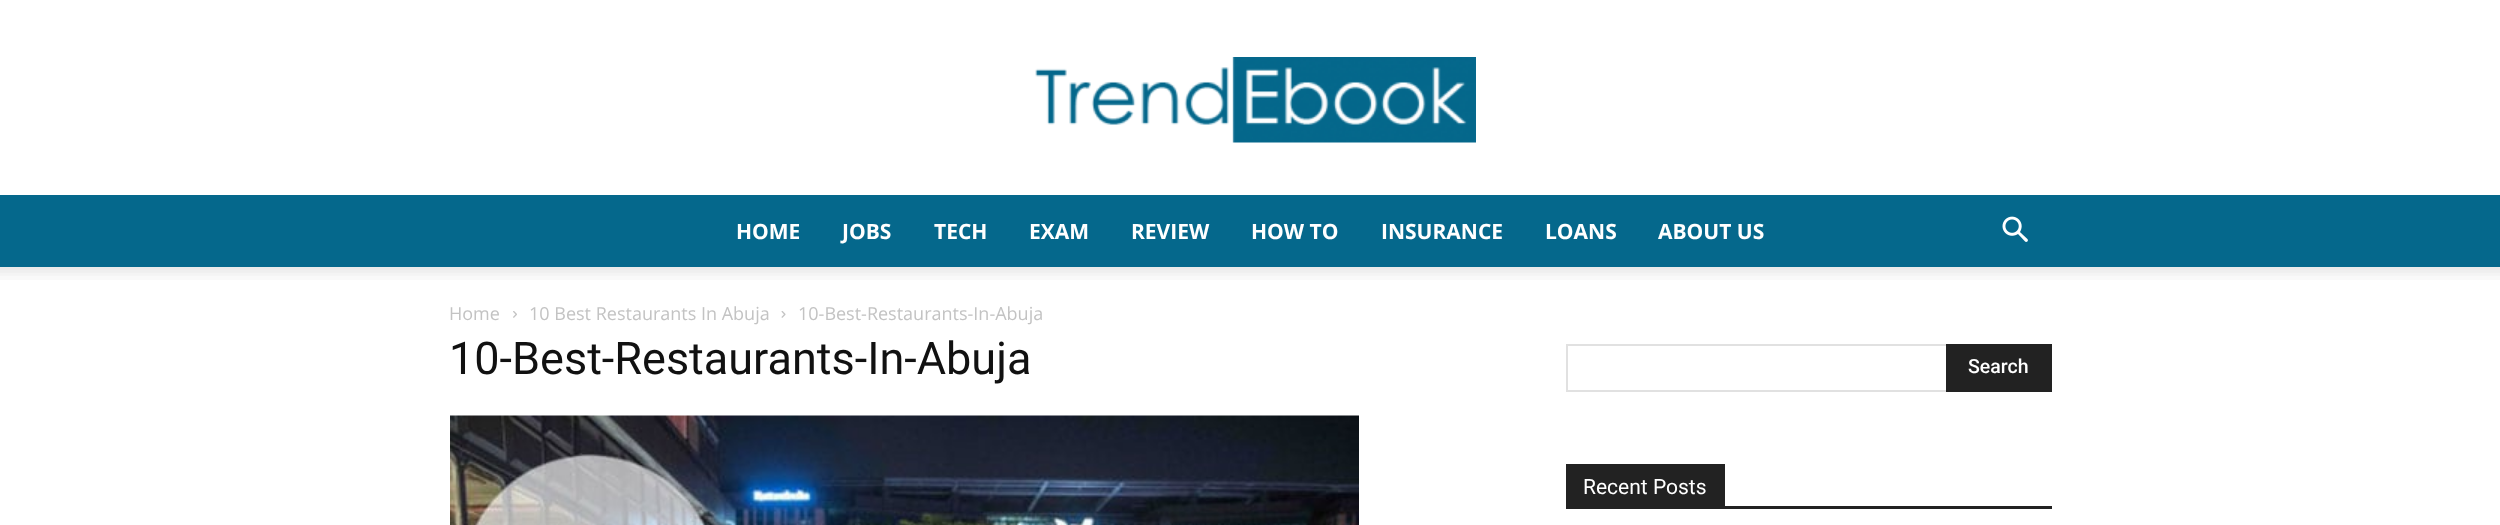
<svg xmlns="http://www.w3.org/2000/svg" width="2500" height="525">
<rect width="100%" height="100%" fill="#fff"/>
<image x="1035" y="57" width="441" height="86" href="media/1.png"/>
<rect y="195" width="2500" height="72" fill="#05688c"/>
<text x="736" y="239" style="font-family:Open Sans;font-size:21px;font-weight:bold;fill:#fff">HOME</text>
<text x="842" y="239" style="font-family:Open Sans;font-size:21px;font-weight:bold;fill:#fff">JOBS</text>
<text x="934" y="239" style="font-family:Open Sans;font-size:21px;font-weight:bold;fill:#fff">TECH</text>
<text x="1029" y="239" style="font-family:Open Sans;font-size:21px;font-weight:bold;fill:#fff">EXAM</text>
<text x="1131" y="239" style="font-family:Open Sans;font-size:21px;font-weight:bold;fill:#fff">REVIEW</text>
<text x="1251" y="239" style="font-family:Open Sans;font-size:21px;font-weight:bold;fill:#fff">HOW TO</text>
<text x="1381" y="239" style="font-family:Open Sans;font-size:21px;font-weight:bold;fill:#fff">INSURANCE</text>
<text x="1545" y="239" style="font-family:Open Sans;font-size:21px;font-weight:bold;fill:#fff">LOANS</text>
<text x="1658" y="239" style="font-family:Open Sans;font-size:21px;font-weight:bold;fill:#fff">ABOUT US</text>
<image x="2002" y="216" width="26" height="26" href="media/2.png"/>
<image x="0" y="267" width="2500" height="13" href="media/3.png"/>
<text x="449" y="320" style="font-family:Open Sans;font-size:18px;fill:#c3c3c3">Home</text>
<image x="513" y="311" width="4" height="7" href="media/4.png"/>
<text x="529" y="320" style="font-family:Open Sans;font-size:18px;fill:#c3c3c3">10 Best Restaurants In Abuja</text>
<image x="781" y="311" width="5" height="7" href="media/5.png"/>
<text x="798" y="320" style="font-family:Open Sans;font-size:18px;fill:#c3c3c3">10-Best-Restaurants-In-Abuja</text>
<text x="449" y="374" style="font-family:Roboto;font-size:45px;fill:#111">10-Best-Restaurants-In-Abuja</text>
<image x="450" y="415" width="909" height="110" href="media/6.png"/>
<rect x="1566" y="344" width="380" height="2" fill="#e1e1e1"/>
<rect x="1566" y="390" width="380" height="2" fill="#e1e1e1"/>
<rect x="1566" y="344" width="2" height="48" fill="#e1e1e1"/>
<rect x="1946" y="344" width="106" height="48" fill="#222"/>
<text x="1968" y="373" style="font-family:Roboto;font-size:19.5px;font-weight:500;fill:#fff">Search</text>
<rect x="1566" y="506" width="486" height="3" fill="#222"/>
<rect x="1566" y="464" width="159" height="42" fill="#222"/>
<text x="1583" y="494" style="font-family:Roboto;font-size:21px;fill:#fff">Recent Posts</text>
</svg>
